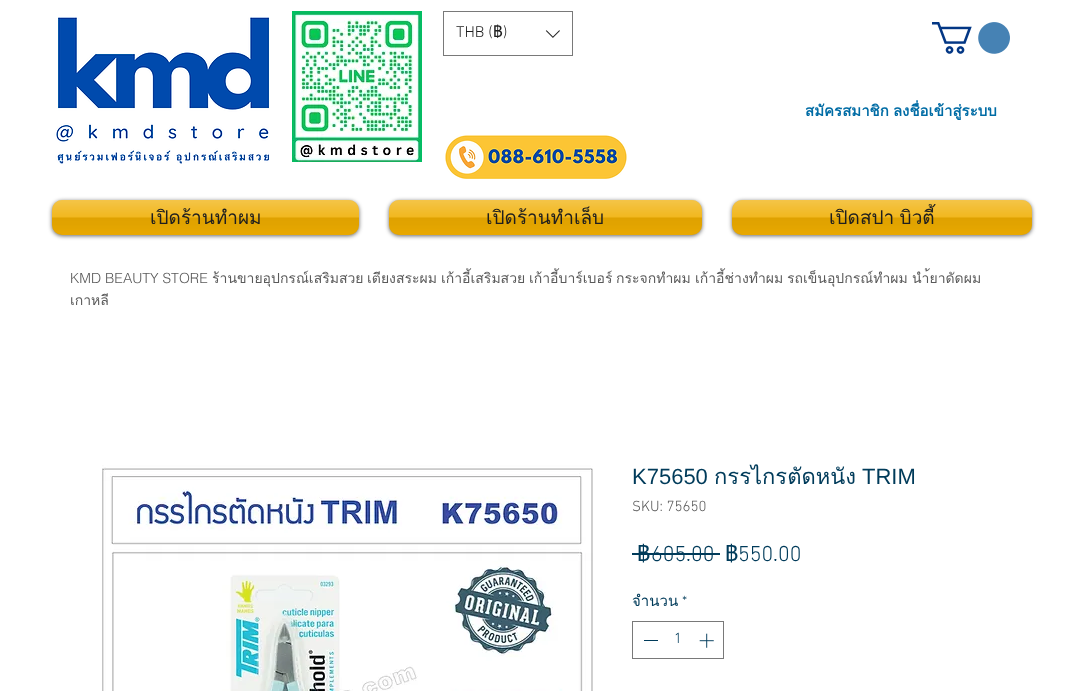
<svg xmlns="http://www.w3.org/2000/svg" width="1084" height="691">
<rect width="100%" height="100%" fill="#fff"/>
<image x="54" y="17" width="216" height="147" href="media/1.png"/>
<image x="292" y="11" width="130" height="151" href="media/2.png"/>
<rect x="443.5" y="11.5" width="129" height="44" fill="none" stroke="#797979"/>
<text x="456" y="37" style="font-family:'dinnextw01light';font-size:16px;font-weight:300;fill:#1f1f1f">THB (</text>
<text x="493" y="37" style="font-family:Loma;font-size:16px;fill:#1f1f1f">฿</text>
<text x="503" y="37" style="font-family:'dinnextw01light';font-size:16px;font-weight:300;fill:#1f1f1f">)</text>
<image x="545" y="30" width="15" height="8" href="media/3.png"/>
<image x="932" y="22" width="78" height="32" href="media/4.png"/>
<text x="805" y="116" word-spacing="-1" style="font-family:Loma;font-size:15px;font-weight:bold;fill:#006ca5">สมัครสมาชิก ลงชื่อเข้าสู่ระบบ</text>
<image x="445" y="135" width="182" height="44" href="media/5.png"/>
<rect x="52" y="201" width="307" height="35" rx="10" fill="#00000099" filter="blur(2px)"/>
<rect x="52" y="200" width="307" height="35" rx="10" fill="#f0ae00"/>
<image x="52" y="200" width="307" height="35" href="media/6.png"/>
<text x="150" y="224" style="font-family:Loma;font-size:19px;fill:#1f1f1f">เปิดร้านทำผม</text>
<rect x="389" y="201" width="313" height="35" rx="10" fill="#00000099" filter="blur(2px)"/>
<rect x="389" y="200" width="313" height="35" rx="10" fill="#f0ae00"/>
<image x="389" y="200" width="313" height="35" href="media/7.png"/>
<text x="486" y="224" style="font-family:Loma;font-size:19px;fill:#1f1f1f">เปิดร้านทำเล็บ</text>
<rect x="732" y="201" width="300" height="35" rx="10" fill="#00000099" filter="blur(2px)"/>
<rect x="732" y="200" width="300" height="35" rx="10" fill="#f0ae00"/>
<image x="732" y="200" width="300" height="35" href="media/8.png"/>
<text x="829" y="224" word-spacing="-1" style="font-family:Loma;font-size:19px;fill:#1f1f1f">เปิดสปา บิวตี้</text>
<text x="70" y="283" style="font-family:helvetica;font-size:14px;font-weight:300;fill:#5a5a5a">KMD BEAUTY STORE</text>
<text x="212" y="283" style="font-family:Loma;font-size:14px;fill:#5a5a5a">ร้านขายอุปกรณ์เสริมสวย</text>
<text x="367" y="283" style="font-family:Loma;font-size:14px;fill:#5a5a5a">เตียงสระผม</text>
<text x="441" y="283" style="font-family:Loma;font-size:14px;fill:#5a5a5a">เก้าอี้เสริมสวย</text>
<text x="529" y="283" style="font-family:Loma;font-size:14px;fill:#5a5a5a">เก้าอี้บาร์เบอร์</text>
<text x="616" y="283" style="font-family:Loma;font-size:14px;fill:#5a5a5a">กระจกทำผม</text>
<text x="695" y="283" style="font-family:Loma;font-size:14px;fill:#5a5a5a">เก้าอี้ช่างทำผม</text>
<text x="787" y="283" style="font-family:Loma;font-size:14px;fill:#5a5a5a">รถเข็นอุปกรณ์ทำผม</text>
<text x="912" y="283" style="font-family:Loma;font-size:14px;fill:#5a5a5a">นำ้ยาดัดผม</text>
<text x="70" y="305" style="font-family:Loma;font-size:14px;fill:#5a5a5a">เกาหลี</text>
<image x="102" y="465" width="491" height="226" href="media/9.png"/>
<text x="632" y="484" style="font-family:Liberation Sans;font-size:22px;fill:#003b5a">K75650</text>
<text x="714" y="484" style="font-family:Loma;font-size:22px;fill:#003b5a">กรรไกรตัดหนัง</text>
<text x="862" y="484" style="font-family:Liberation Sans;font-size:22px;fill:#003b5a">TRIM</text>
<text x="632" y="511" style="font-family:'dinnextw01light';font-size:15px;font-weight:300;fill:#5a5a5a">SKU: 75650</text>
<text x="637" y="561" style="font-family:Loma;font-size:22px;fill:#003b5a">฿</text>
<text x="651" y="561" style="font-family:'dinnextw01light';font-size:22px;font-weight:300;fill:#003b5a">605.00</text>
<rect x="632" y="553" width="88" height="2" fill="#003b5a"/>
<text x="725" y="561" style="font-family:Loma;font-size:22px;fill:#003b5a">฿</text>
<text x="738" y="561" style="font-family:'dinnextw01light';font-size:22px;font-weight:300;fill:#003b5a">550.00</text>
<text x="632" y="606" style="font-family:Loma;font-size:15px;fill:#003b5a">จำนวน</text>
<text x="682" y="606" style="font-family:'dinnextw01light';font-size:15px;font-weight:300;fill:#003b5a">*</text>
<rect x="632.5" y="621.5" width="91" height="37" fill="none" stroke="#797979"/>
<rect x="644" y="640" width="14" height="1" fill="#003b5a"/>
<text x="674" y="643" style="font-family:'dinnextw01light';font-size:15px;font-weight:300;fill:#003b5a">1</text>
<image x="699" y="633" width="15" height="15" href="media/10.png"/>
</svg>
